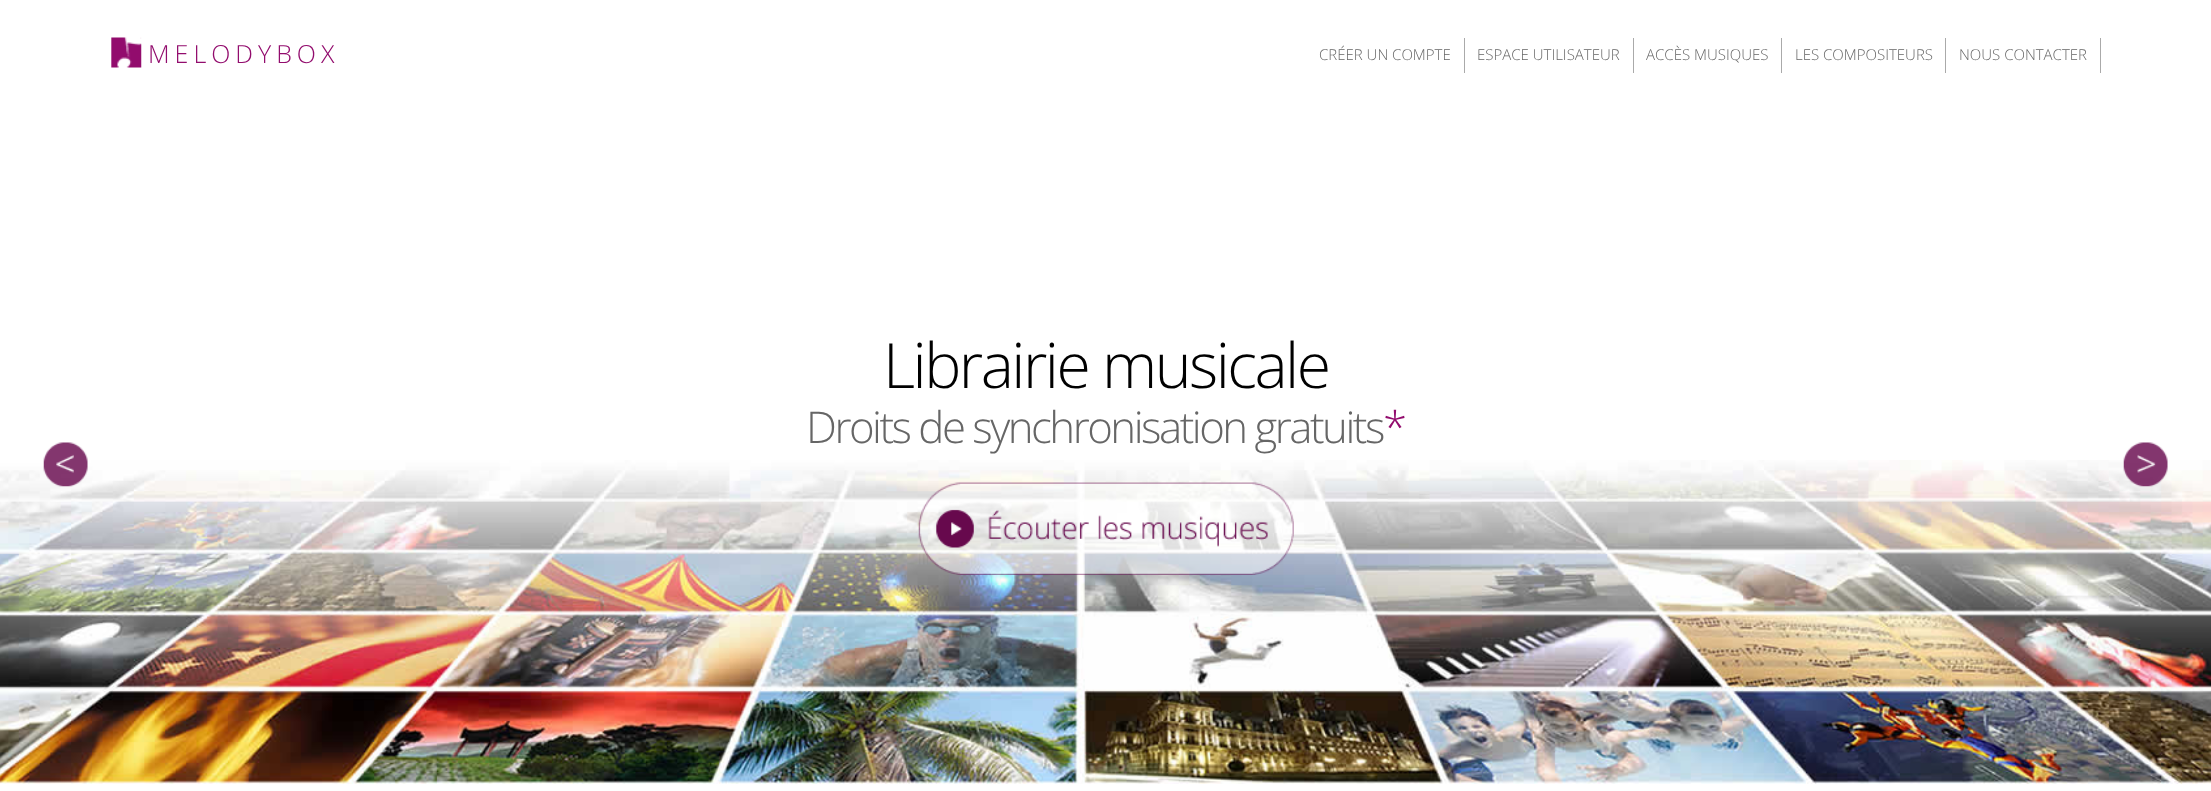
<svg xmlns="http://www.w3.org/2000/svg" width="2211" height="791">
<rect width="100%" height="100%" fill="#fff"/>
<image x="111" y="37" width="31" height="31" href="media/1.png"/>
<text x="148" y="63" style="font-family:Open Sans;font-size:25px;font-weight:300;letter-spacing:5px;fill:#920c6d">MELODYBOX</text>
<rect x="1464" y="38" width="1" height="35" fill="#aaa"/>
<text x="1319" y="60" style="font-family:Open Sans;font-size:15px;font-weight:300;fill:#666">CRÉER UN COMPTE</text>
<rect x="1633" y="38" width="1" height="35" fill="#aaa"/>
<text x="1477" y="60" style="font-family:Open Sans;font-size:15px;font-weight:300;fill:#666">ESPACE UTILISATEUR</text>
<rect x="1781" y="38" width="1" height="35" fill="#aaa"/>
<text x="1646" y="60" style="font-family:Open Sans;font-size:15px;font-weight:300;fill:#666">ACCÈS MUSIQUES</text>
<rect x="1945" y="38" width="1" height="35" fill="#aaa"/>
<text x="1795" y="60" style="font-family:Open Sans;font-size:15px;font-weight:300;fill:#666">LES COMPOSITEURS</text>
<rect x="2100" y="38" width="1" height="35" fill="#aaa"/>
<text x="1959" y="60" style="font-family:Open Sans;font-size:15px;font-weight:300;fill:#666">NOUS CONTACTER</text>
<image x="0" y="460" width="2211" height="324" href="media/2.png"/>
<text x="883" y="388" style="font-family:Open Sans;font-size:62.5px;font-weight:300;letter-spacing:-2.5px;fill:#000">Librairie musicale</text>
<text x="806" y="443" style="font-family:Open Sans;font-size:43.75px;font-weight:300;letter-spacing:-2.5px;fill:#666">Droits de synchronisation gratuits</text>
<text x="1383" y="443" style="font-family:Open Sans;font-size:43.75px;font-weight:300;letter-spacing:-2.5px;fill:#920c6d">*</text>
<image x="918" y="482" width="376" height="93" href="media/3.png"/>
<image x="43" y="442" width="45" height="45" href="media/4.png"/>
<image x="2123" y="442" width="45" height="45" href="media/5.png"/>
</svg>
